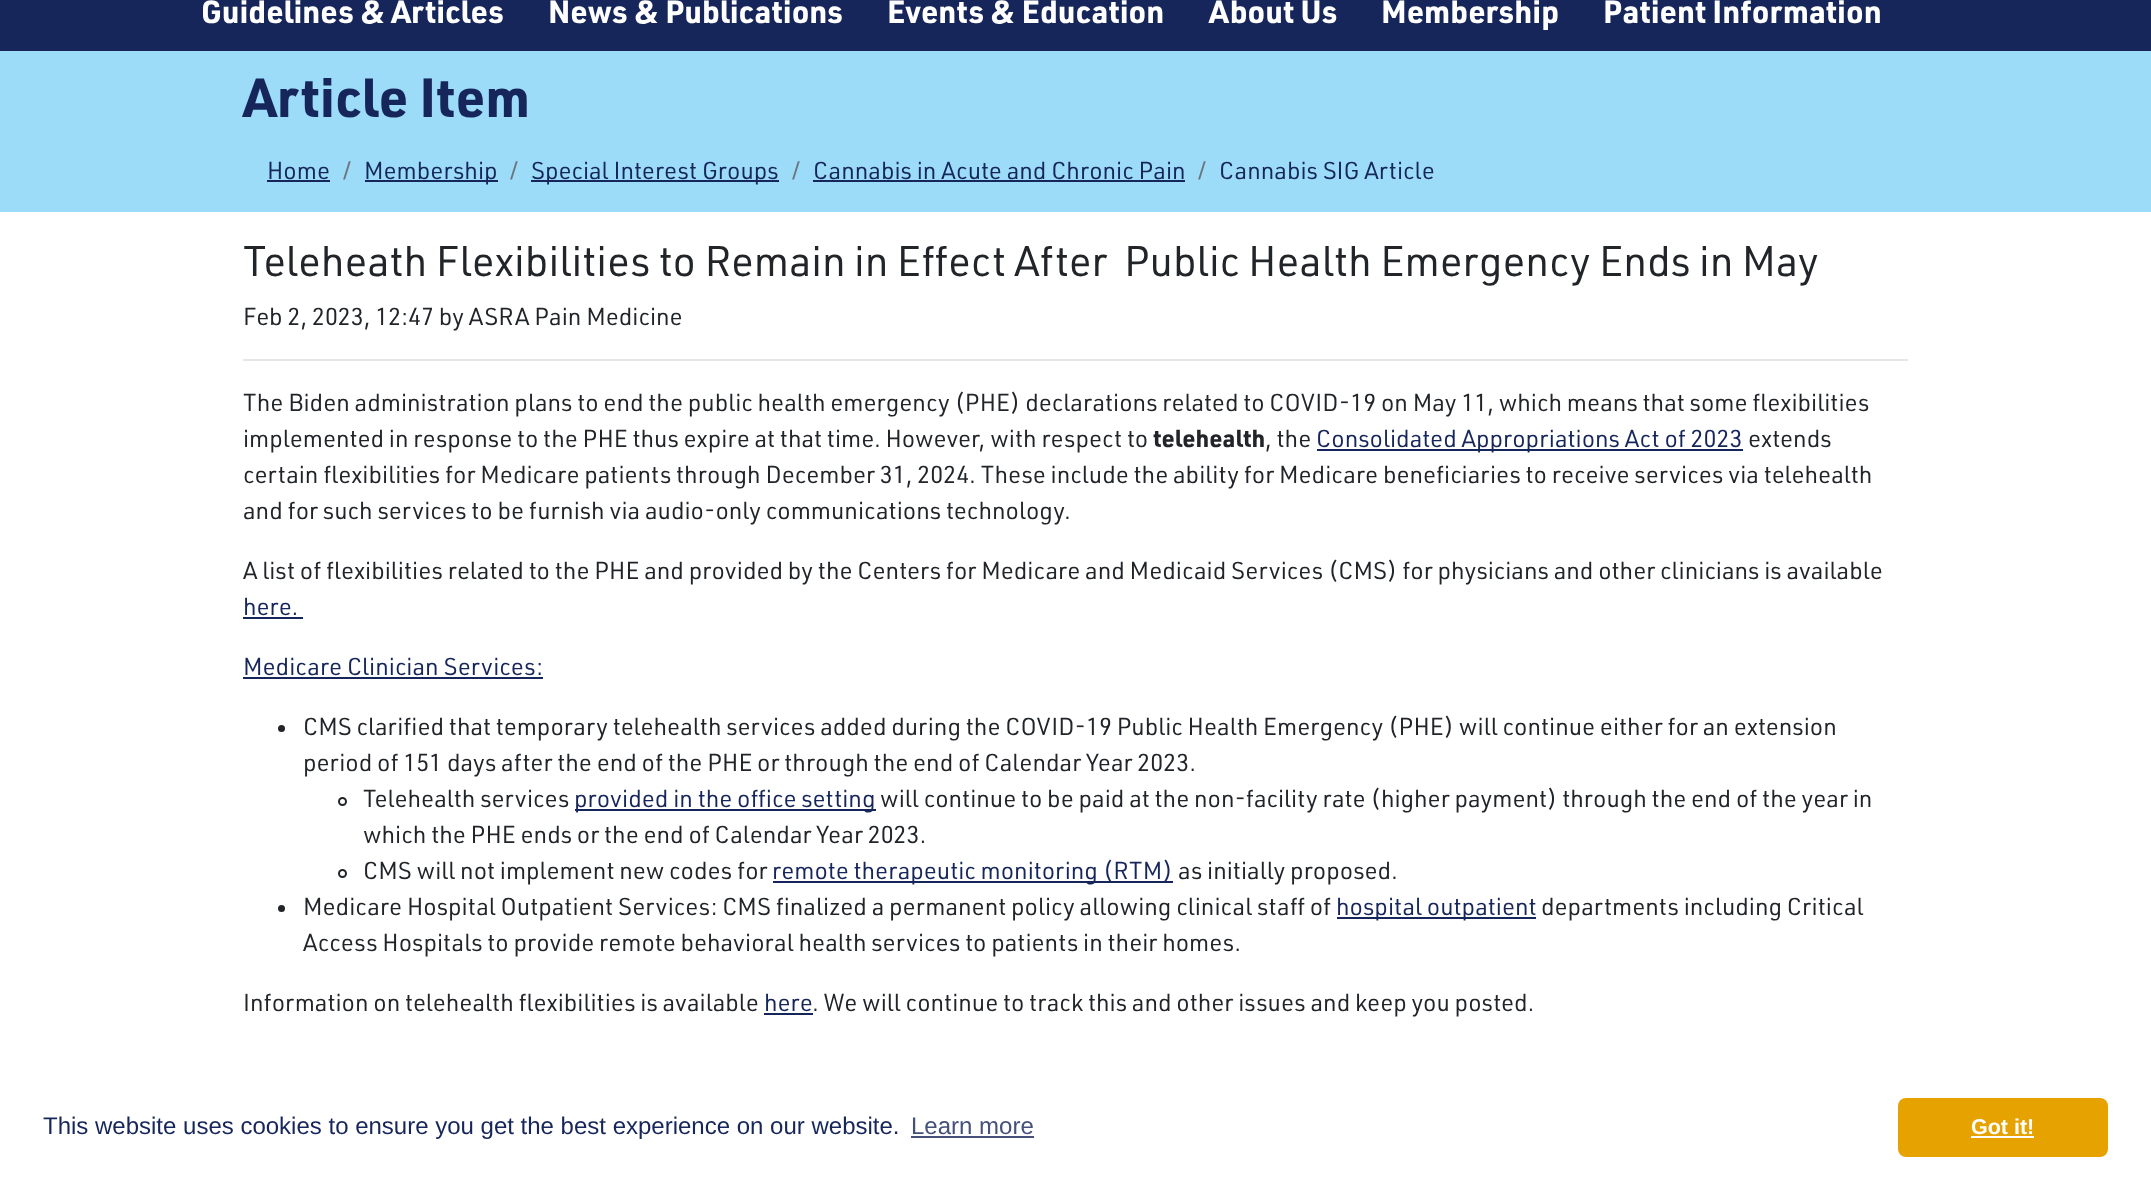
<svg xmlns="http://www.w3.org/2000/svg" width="2151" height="1180">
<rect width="100%" height="100%" fill="#16265a"/>
<text x="201" y="23" style="font-family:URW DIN;font-size:31.5px;font-weight:bold;fill:#fff">Guidelines &amp; Articles</text>
<text x="548" y="23" style="font-family:URW DIN;font-size:31.5px;font-weight:bold;fill:#fff">News &amp; Publications</text>
<text x="887" y="23" style="font-family:URW DIN;font-size:31.5px;font-weight:bold;fill:#fff">Events &amp; Education</text>
<text x="1209" y="23" style="font-family:URW DIN;font-size:31.5px;font-weight:bold;fill:#fff">About Us</text>
<text x="1381" y="23" style="font-family:URW DIN;font-size:31.5px;font-weight:bold;fill:#fff">Membership</text>
<text x="1603" y="23" style="font-family:URW DIN;font-size:31.5px;font-weight:bold;fill:#fff">Patient Information</text>
<rect y="51" width="2151" height="161" fill="#9cdcf9"/>
<text x="243" y="117" style="font-family:URW DIN;font-size:54px;font-weight:bold;fill:#16265a">Article Item</text>
<text x="267" y="179" style="font-family:URW DIN;font-size:24px;fill:#16265a">Home</text>
<rect x="267" y="180" width="63" height="2" fill="#16265a"/>
<text x="342" y="179" style="font-family:URW DIN;font-size:24px;fill:#6c757d">/</text>
<rect x="365" y="180" width="133" height="2" fill="#16265a"/>
<text x="364" y="179" style="font-family:URW DIN;font-size:24px;fill:#16265a">Membership</text>
<text x="509" y="179" style="font-family:URW DIN;font-size:24px;fill:#6c757d">/</text>
<rect x="531" y="180" width="248" height="2" fill="#16265a"/>
<text x="531" y="179" style="font-family:URW DIN;font-size:24px;fill:#16265a">Special Interest Groups</text>
<text x="791" y="179" style="font-family:URW DIN;font-size:24px;fill:#6c757d">/</text>
<text x="813" y="179" style="font-family:URW DIN;font-size:24px;fill:#16265a">Cannabis in Acute and Chronic Pain</text>
<rect x="813" y="180" width="372" height="2" fill="#16265a"/>
<text x="1197" y="179" style="font-family:URW DIN;font-size:24px;fill:#6c757d">/</text>
<text x="1219" y="179" style="font-family:URW DIN;font-size:24px;fill:#16265a">Cannabis SIG Article</text>
<rect y="212" width="2151" height="968" fill="#fff"/>
<text x="243" y="276" style="font-family:URW DIN;font-size:42px;fill:#212529" xml:space="preserve">Teleheath Flexibilities to Remain in Effect After  Public Health Emergency Ends in May</text>
<text x="243" y="325" style="font-family:URW DIN;font-size:24px;fill:#212529">Feb 2, 2023, 12:47 by ASRA Pain Medicine</text>
<rect x="243" y="359" width="1665" height="2" fill="#e6e6e6"/>
<text x="243" y="411" style="font-family:URW DIN;font-size:24px;fill:#212529">The Biden administration plans to end the public health emergency (PHE) declarations related to COVID-19 on May 11, which means that some flexibilities</text>
<text x="243" y="447" style="font-family:URW DIN;font-size:24px;fill:#212529">implemented in response to the PHE thus expire at that time. However, with respect to</text>
<text x="1153" y="447" style="font-family:URW DIN;font-size:24px;font-weight:bold;fill:#212529">telehealth</text>
<text x="1265" y="447" style="font-family:URW DIN;font-size:24px;fill:#212529">, the</text>
<rect x="1317" y="449" width="426" height="2" fill="#16265a"/>
<text x="1316" y="447" style="font-family:URW DIN;font-size:24px;fill:#16265a">Consolidated Appropriations Act of 2023</text>
<text x="1748" y="447" style="font-family:URW DIN;font-size:24px;fill:#212529">extends</text>
<text x="243" y="483" style="font-family:URW DIN;font-size:24px;fill:#212529">certain flexibilities for Medicare patients through December 31, 2024. These include the ability for Medicare beneficiaries to receive services via telehealth</text>
<text x="243" y="519" style="font-family:URW DIN;font-size:24px;fill:#212529">and for such services to be furnish via audio-only communications technology.</text>
<text x="243" y="579" style="font-family:URW DIN;font-size:24px;fill:#212529">A list of flexibilities related to the PHE and provided by the Centers for Medicare and Medicaid Services (CMS) for physicians and other clinicians is available</text>
<text x="243" y="615" style="font-family:URW DIN;font-size:24px;fill:#16265a">here.</text>
<rect x="243" y="617" width="60" height="2" fill="#16265a"/>
<text x="243" y="675" style="font-family:URW DIN;font-size:24px;fill:#16265a">Medicare Clinician Services:</text>
<rect x="243" y="677" width="300" height="2" fill="#16265a"/>
<circle cx="281.5" cy="728.5" r="3.5" fill="#212529"/>
<text x="303" y="735" style="font-family:URW DIN;font-size:24px;fill:#212529">CMS clarified that temporary telehealth services added during the COVID-19 Public Health Emergency (PHE) will continue either for an extension</text>
<text x="303" y="771" style="font-family:URW DIN;font-size:24px;fill:#212529">period of 151 days after the end of the PHE or through the end of Calendar Year 2023.</text>
<circle cx="342.5" cy="801.5" r="3.5" fill="none" stroke="#212529" stroke-width="2"/>
<text x="363" y="807" style="font-family:URW DIN;font-size:24px;fill:#212529">Telehealth services</text>
<rect x="575" y="809" width="301" height="2" fill="#16265a"/>
<text x="574" y="807" style="font-family:URW DIN;font-size:24px;fill:#16265a">provided in the office setting</text>
<text x="880" y="807" style="font-family:URW DIN;font-size:24px;fill:#212529">will continue to be paid at the non-facility rate (higher payment) through the end of the year in</text>
<text x="363" y="843" style="font-family:URW DIN;font-size:24px;fill:#212529">which the PHE ends or the end of Calendar Year 2023.</text>
<circle cx="342.5" cy="873.5" r="3.5" fill="none" stroke="#212529" stroke-width="2"/>
<text x="363" y="879" style="font-family:URW DIN;font-size:24px;fill:#212529">CMS will not implement new codes for</text>
<rect x="773" y="881" width="400" height="2" fill="#16265a"/>
<text x="772" y="879" style="font-family:URW DIN;font-size:24px;fill:#16265a">remote therapeutic monitoring (RTM)</text>
<text x="1178" y="879" style="font-family:URW DIN;font-size:24px;fill:#212529">as initially proposed.</text>
<circle cx="281.5" cy="908.5" r="3.5" fill="#212529"/>
<text x="303" y="915" style="font-family:URW DIN;font-size:24px;fill:#212529">Medicare Hospital Outpatient Services: CMS finalized a permanent policy allowing clinical staff of</text>
<rect x="1337" y="917" width="199" height="2" fill="#16265a"/>
<text x="1336" y="915" style="font-family:URW DIN;font-size:24px;fill:#16265a">hospital outpatient</text>
<text x="1541" y="915" style="font-family:URW DIN;font-size:24px;fill:#212529">departments including Critical</text>
<text x="303" y="951" style="font-family:URW DIN;font-size:24px;fill:#212529">Access Hospitals to provide remote behavioral health services to patients in their homes.</text>
<text x="243" y="1011" style="font-family:URW DIN;font-size:24px;fill:#212529">Information on telehealth flexibilities is available</text>
<text x="764" y="1011" style="font-family:URW DIN;font-size:24px;fill:#16265a">here</text>
<rect x="764" y="1013" width="49" height="2" fill="#16265a"/>
<text x="812" y="1011" style="font-family:URW DIN;font-size:24px;fill:#212529">. We will continue to track this and other issues and keep you posted.</text>
<text x="43" y="1134" style="font-family:Liberation Sans;font-size:24px;fill:#16265a">This website uses cookies to ensure you get the best experience on our website.</text>
<text x="911" y="1134" style="font-family:Liberation Sans;font-size:24px;fill:#45517b">Learn more</text>
<rect x="911" y="1136" width="123" height="2" fill="#45517b"/>
<rect x="1898" y="1098" width="210" height="59" rx="8" fill="#e6a300"/>
<text x="1971" y="1134" style="font-family:Liberation Sans;font-size:21.5px;font-weight:bold;fill:#fff">Got it!</text>
<rect x="1971" y="1136" width="63" height="2" fill="#fff"/>
</svg>
